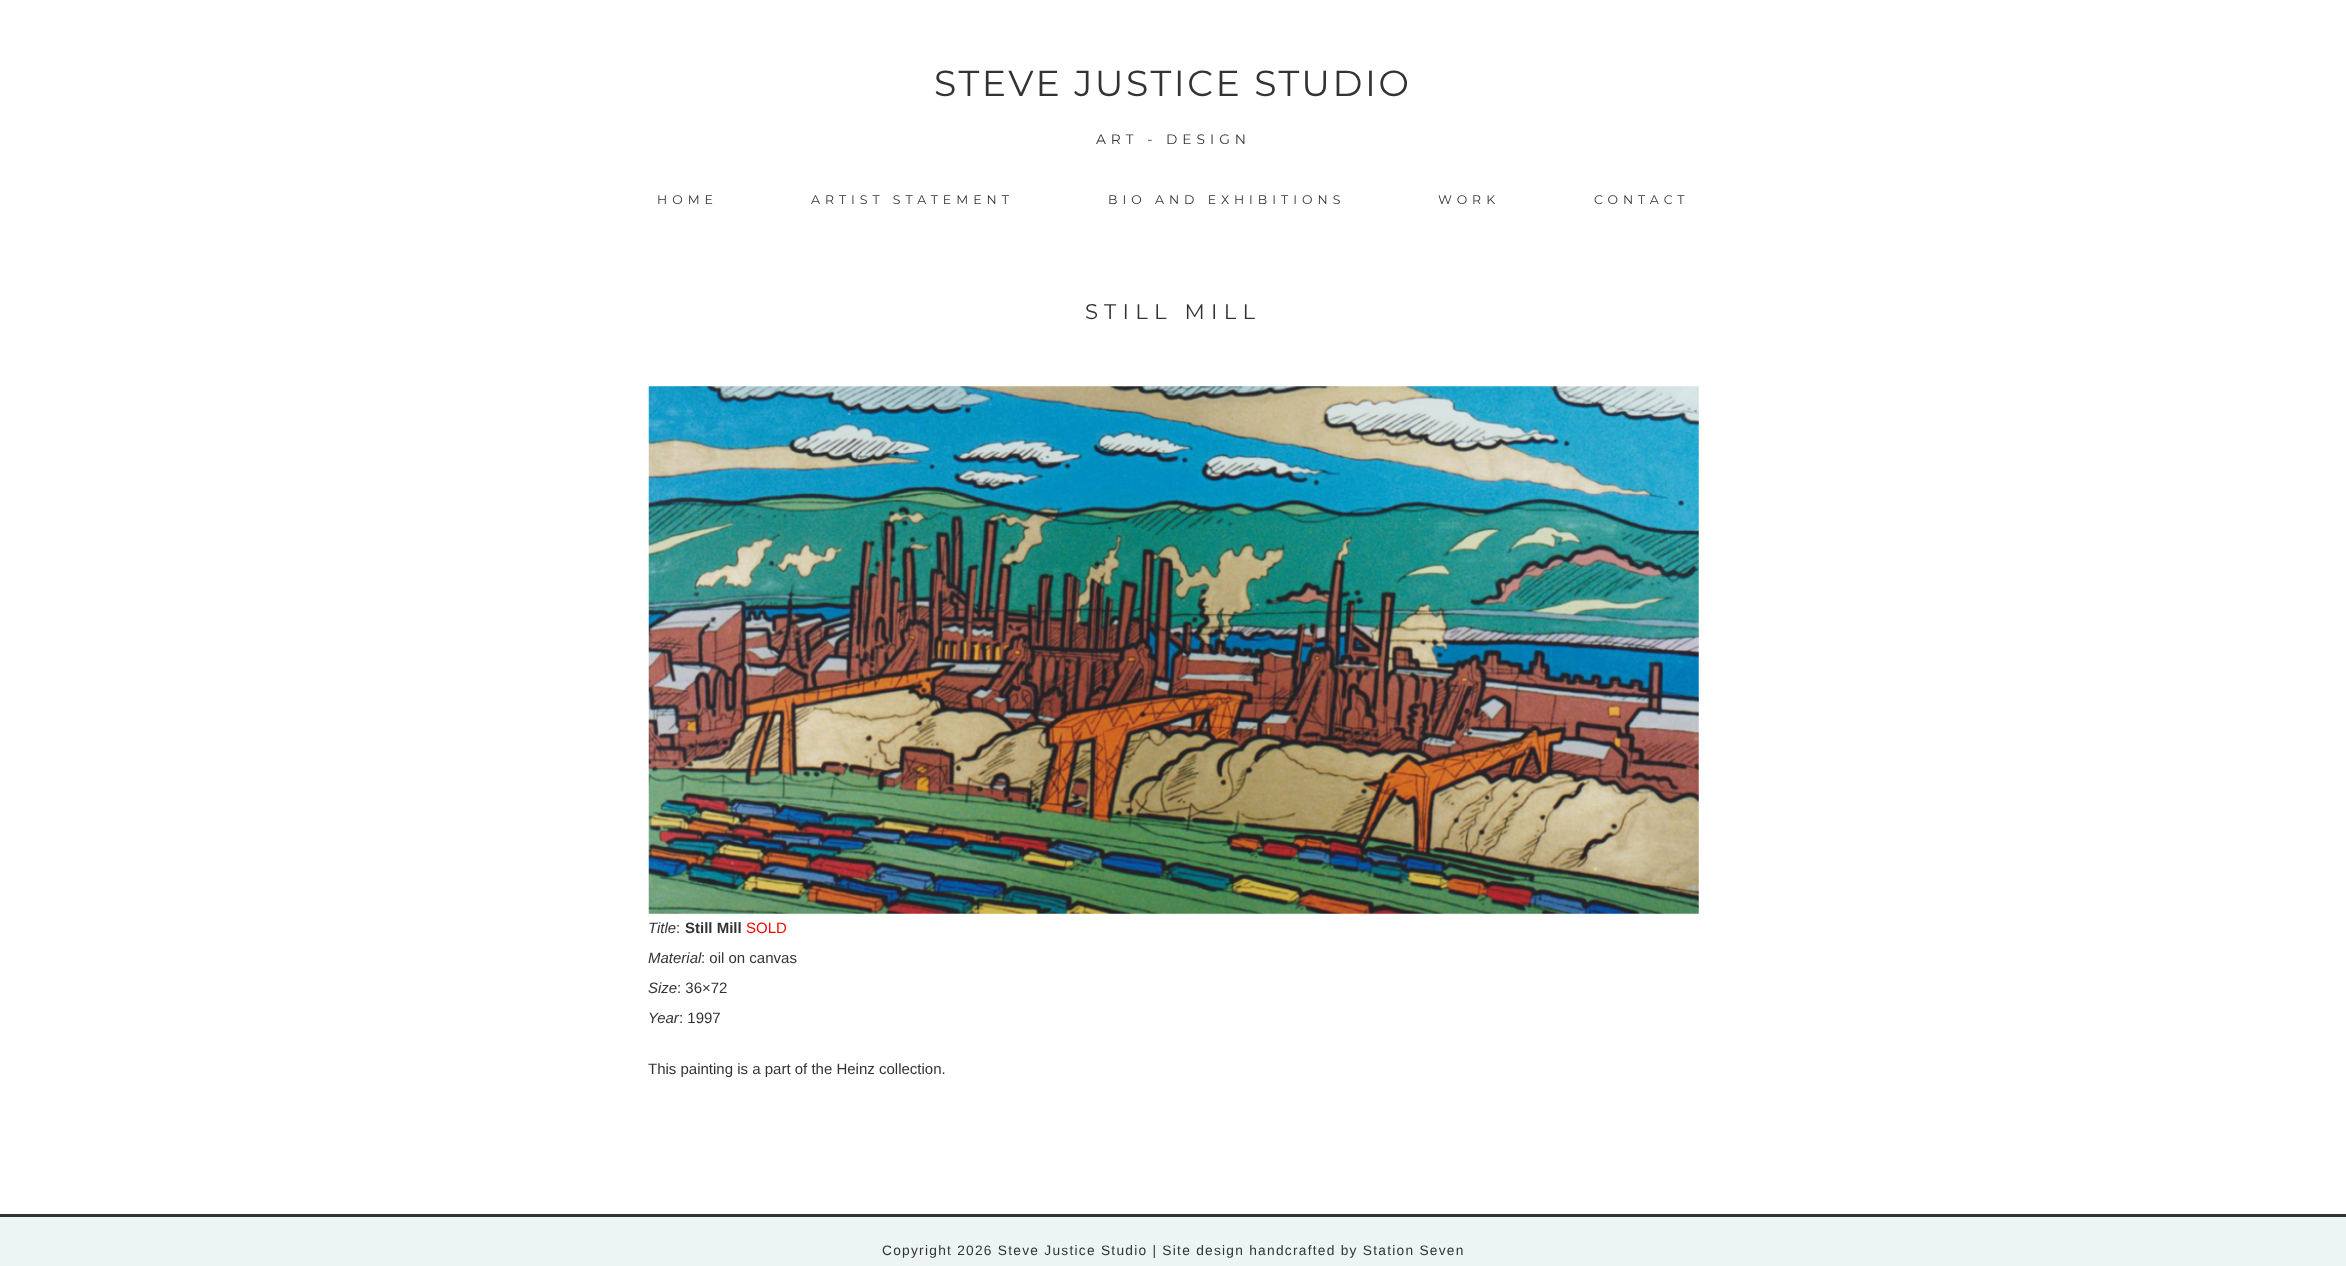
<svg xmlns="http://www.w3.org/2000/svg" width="2346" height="1266">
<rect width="100%" height="100%" fill="#fff"/>
<text x="934" y="96" style="font-family:Montserrat;font-size:36.25px;letter-spacing:2.5px;fill:#333">STEVE JUSTICE STUDIO</text>
<text x="1096" y="144" style="font-family:Montserrat;font-size:13.75px;letter-spacing:5px;fill:#333">ART - DESIGN</text>
<text x="657" y="204" style="font-family:Montserrat;font-size:12.5px;letter-spacing:5px;fill:#333">HOME</text>
<text x="811" y="204" style="font-family:Montserrat;font-size:12.5px;letter-spacing:5px;fill:#333">ARTIST STATEMENT</text>
<text x="1108" y="204" style="font-family:Montserrat;font-size:12.5px;letter-spacing:5px;fill:#333">BIO AND EXHIBITIONS</text>
<text x="1438" y="204" style="font-family:Montserrat;font-size:12.5px;letter-spacing:5px;fill:#333">WORK</text>
<text x="1594" y="204" style="font-family:Montserrat;font-size:12.5px;letter-spacing:5px;fill:#333">CONTACT</text>
<text x="1085" y="319" style="font-family:Montserrat;font-size:21.25px;letter-spacing:6.25px;fill:#333">STILL MILL</text>
<image x="648" y="386" width="1051" height="528" href="media/1.png"/>
<text x="648" y="933" style="font-family:Liberation Sans;font-size:15px;font-style:italic;fill:#333">Title</text>
<text x="676" y="933" style="font-family:Liberation Sans;font-size:15px;fill:#333">:</text>
<text x="685" y="933" style="font-family:Liberation Sans;font-size:15px;font-weight:bold;fill:#333">Still Mill</text>
<text x="746" y="933" style="font-family:Liberation Sans;font-size:15px;fill:#f00">SOLD</text>
<text x="648" y="963" style="font-family:Liberation Sans;font-size:15px;font-style:italic;fill:#333">Material</text>
<text x="701" y="963" style="font-family:Liberation Sans;font-size:15px;fill:#333">: oil on canvas</text>
<text x="648" y="993" style="font-family:Liberation Sans;font-size:15px;font-style:italic;fill:#333">Size</text>
<text x="677" y="993" style="font-family:Liberation Sans;font-size:15px;fill:#333">: 36×72</text>
<text x="648" y="1023" style="font-family:Liberation Sans;font-size:15px;font-style:italic;fill:#333">Year</text>
<text x="679" y="1023" style="font-family:Liberation Sans;font-size:15px;fill:#333">: 1997</text>
<text x="648" y="1074" style="font-family:Liberation Sans;font-size:15px;fill:#333">This painting is a part of the Heinz collection.</text>
<rect y="1217" width="2346" height="49" fill="#edf4f4"/>
<rect y="1214" width="2346" height="3" fill="#333"/>
<text x="882" y="1255" style="font-family:Liberation Sans;font-size:13.75px;letter-spacing:1.25px;fill:#333">Copyright 2026 Steve Justice Studio | Site design handcrafted by Station Seven</text>
</svg>
